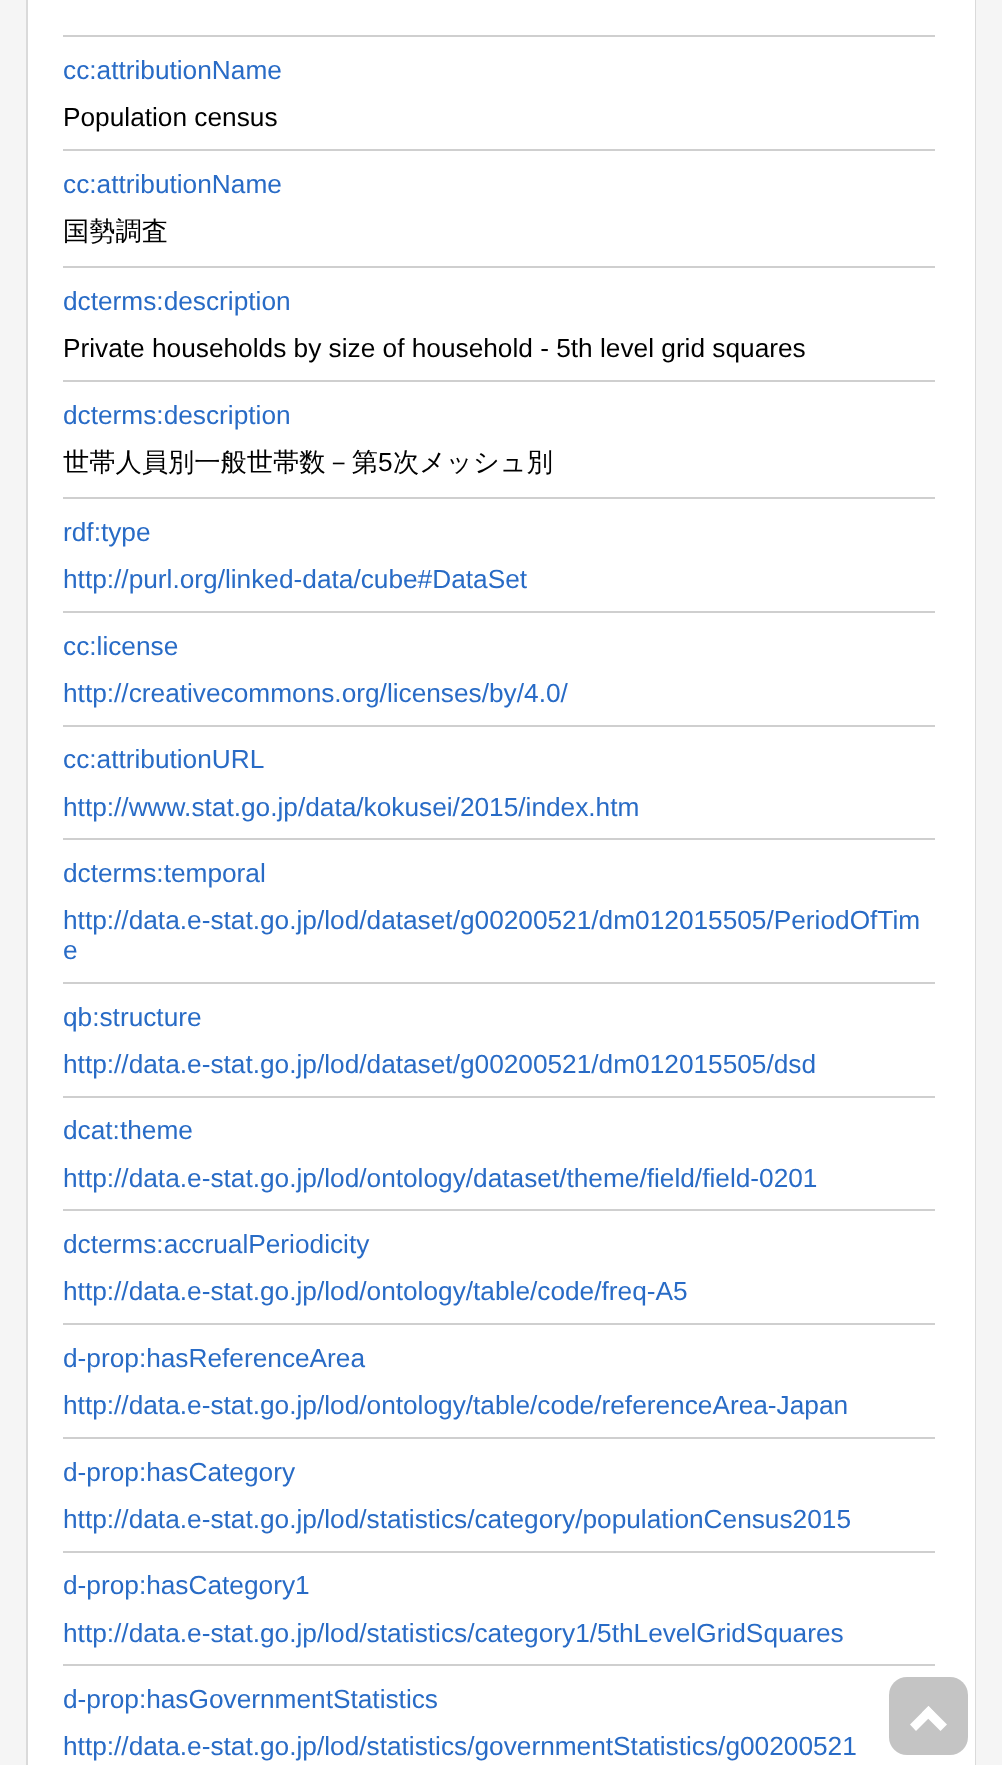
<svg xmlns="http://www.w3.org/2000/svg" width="1002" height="1765">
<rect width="100%" height="100%" fill="#f5f5f5"/>
<path d="M44-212h915c9 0 16 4 16 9v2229c0 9-7 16-16 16h-915c-9 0-16-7-16-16v-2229c0-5 7-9 16-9z" fill="#fff"/>
<path d="M974-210c1 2 2 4 2 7v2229c0 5-2 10-5 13l-1-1c3-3 5-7 5-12v-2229c0-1 0-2-1-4z" fill="#dadada"/>
<path d="M26-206l2-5l1 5c-1 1-1 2-1 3v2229c0 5 2 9 5 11l-2 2c-2-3-4-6-5-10z" fill="#dadada"/>
<rect x="63" y="35" width="872" height="2" fill="#cfcfcf"/>
<rect x="63" y="149" width="872" height="2" fill="#cfcfcf"/>
<text x="63" y="79" style="font-family:Liberation Sans;font-size:26.25px;fill:#286bc6">cc:attributionName</text>
<text x="63" y="126" style="font-family:Liberation Sans;font-size:26.25px;fill:#000">Population census</text>
<rect x="63" y="266" width="872" height="2" fill="#cfcfcf"/>
<text x="63" y="193" style="font-family:Liberation Sans;font-size:26.25px;fill:#286bc6">cc:attributionName</text>
<text x="63" y="240" style="font-family:WenQuanYi Zen Hei;font-size:26.25px;font-weight:500;fill:#000">国勢調査</text>
<rect x="63" y="380" width="872" height="2" fill="#cfcfcf"/>
<text x="63" y="310" style="font-family:Liberation Sans;font-size:26.25px;fill:#286bc6">dcterms:description</text>
<text x="63" y="357" style="font-family:Liberation Sans;font-size:26.25px;fill:#000">Private households by size of household - 5th level grid squares</text>
<rect x="63" y="497" width="872" height="2" fill="#cfcfcf"/>
<text x="63" y="424" style="font-family:Liberation Sans;font-size:26.25px;fill:#286bc6">dcterms:description</text>
<text x="63" y="471" style="font-family:WenQuanYi Zen Hei;font-size:26.25px;font-weight:500;fill:#000">世帯人員別一般世帯数－第</text>
<text x="378" y="471" style="font-family:Liberation Sans;font-size:26.25px;fill:#000">5</text>
<text x="393" y="471" style="font-family:WenQuanYi Zen Hei;font-size:26.25px;font-weight:500;fill:#000">次メッシュ別</text>
<rect x="63" y="611" width="872" height="2" fill="#cfcfcf"/>
<text x="63" y="541" style="font-family:Liberation Sans;font-size:26.25px;fill:#286bc6">rdf:type</text>
<text x="63" y="588" style="font-family:Liberation Sans;font-size:26.25px;fill:#286bc6">http://purl.org/linked-data/cube#DataSet</text>
<rect x="63" y="725" width="872" height="2" fill="#cfcfcf"/>
<text x="63" y="655" style="font-family:Liberation Sans;font-size:26.25px;fill:#286bc6">cc:license</text>
<text x="63" y="702" style="font-family:Liberation Sans;font-size:26.25px;fill:#286bc6">http://creativecommons.org/licenses/by/4.0/</text>
<rect x="63" y="838" width="872" height="2" fill="#cfcfcf"/>
<text x="63" y="768" style="font-family:Liberation Sans;font-size:26.25px;fill:#286bc6">cc:attributionURL</text>
<text x="63" y="816" style="font-family:Liberation Sans;font-size:26.25px;fill:#286bc6">http://www.stat.go.jp/data/kokusei/2015/index.htm</text>
<rect x="63" y="982" width="872" height="2" fill="#cfcfcf"/>
<text x="63" y="882" style="font-family:Liberation Sans;font-size:26.25px;fill:#286bc6">dcterms:temporal</text>
<text x="63" y="929" style="font-family:Liberation Sans;font-size:26.25px;fill:#286bc6">http://data.e-stat.go.jp/lod/dataset/g00200521/dm012015505/PeriodOfTim</text>
<text x="63" y="959" style="font-family:Liberation Sans;font-size:26.25px;fill:#286bc6">e</text>
<rect x="63" y="1096" width="872" height="2" fill="#cfcfcf"/>
<text x="63" y="1026" style="font-family:Liberation Sans;font-size:26.25px;fill:#286bc6">qb:structure</text>
<text x="63" y="1073" style="font-family:Liberation Sans;font-size:26.25px;fill:#286bc6">http://data.e-stat.go.jp/lod/dataset/g00200521/dm012015505/dsd</text>
<rect x="63" y="1209" width="872" height="2" fill="#cfcfcf"/>
<text x="63" y="1139" style="font-family:Liberation Sans;font-size:26.25px;fill:#286bc6">dcat:theme</text>
<text x="63" y="1187" style="font-family:Liberation Sans;font-size:26.25px;fill:#286bc6">http://data.e-stat.go.jp/lod/ontology/dataset/theme/field/field-0201</text>
<rect x="63" y="1323" width="872" height="2" fill="#cfcfcf"/>
<text x="63" y="1253" style="font-family:Liberation Sans;font-size:26.25px;fill:#286bc6">dcterms:accrualPeriodicity</text>
<text x="63" y="1300" style="font-family:Liberation Sans;font-size:26.25px;fill:#286bc6">http://data.e-stat.go.jp/lod/ontology/table/code/freq-A5</text>
<rect x="63" y="1437" width="872" height="2" fill="#cfcfcf"/>
<text x="63" y="1367" style="font-family:Liberation Sans;font-size:26.25px;fill:#286bc6">d-prop:hasReferenceArea</text>
<text x="63" y="1414" style="font-family:Liberation Sans;font-size:26.25px;fill:#286bc6">http://data.e-stat.go.jp/lod/ontology/table/code/referenceArea-Japan</text>
<rect x="63" y="1551" width="872" height="2" fill="#cfcfcf"/>
<text x="63" y="1481" style="font-family:Liberation Sans;font-size:26.25px;fill:#286bc6">d-prop:hasCategory</text>
<text x="63" y="1528" style="font-family:Liberation Sans;font-size:26.25px;fill:#286bc6">http://data.e-stat.go.jp/lod/statistics/category/populationCensus2015</text>
<rect x="63" y="1664" width="872" height="2" fill="#cfcfcf"/>
<text x="63" y="1594" style="font-family:Liberation Sans;font-size:26.25px;fill:#286bc6">d-prop:hasCategory1</text>
<text x="63" y="1642" style="font-family:Liberation Sans;font-size:26.25px;fill:#286bc6">http://data.e-stat.go.jp/lod/statistics/category1/5thLevelGridSquares</text>
<text x="63" y="1708" style="font-family:Liberation Sans;font-size:26.25px;fill:#286bc6">d-prop:hasGovernmentStatistics</text>
<text x="63" y="1755" style="font-family:Liberation Sans;font-size:26.25px;fill:#286bc6">http://data.e-stat.go.jp/lod/statistics/governmentStatistics/g00200521</text>
<rect x="889" y="1677" width="79" height="78" rx="18" fill="#c4c4c4"/>
<path d="M928.5 1706l18.5 18.5l-6.5 6.5l-18.5-18.5z" fill="#fff"/>
<path d="M928.5 1706l6 6.5l-18.5 18.5l-6-6.5z" fill="#fff"/>
</svg>
